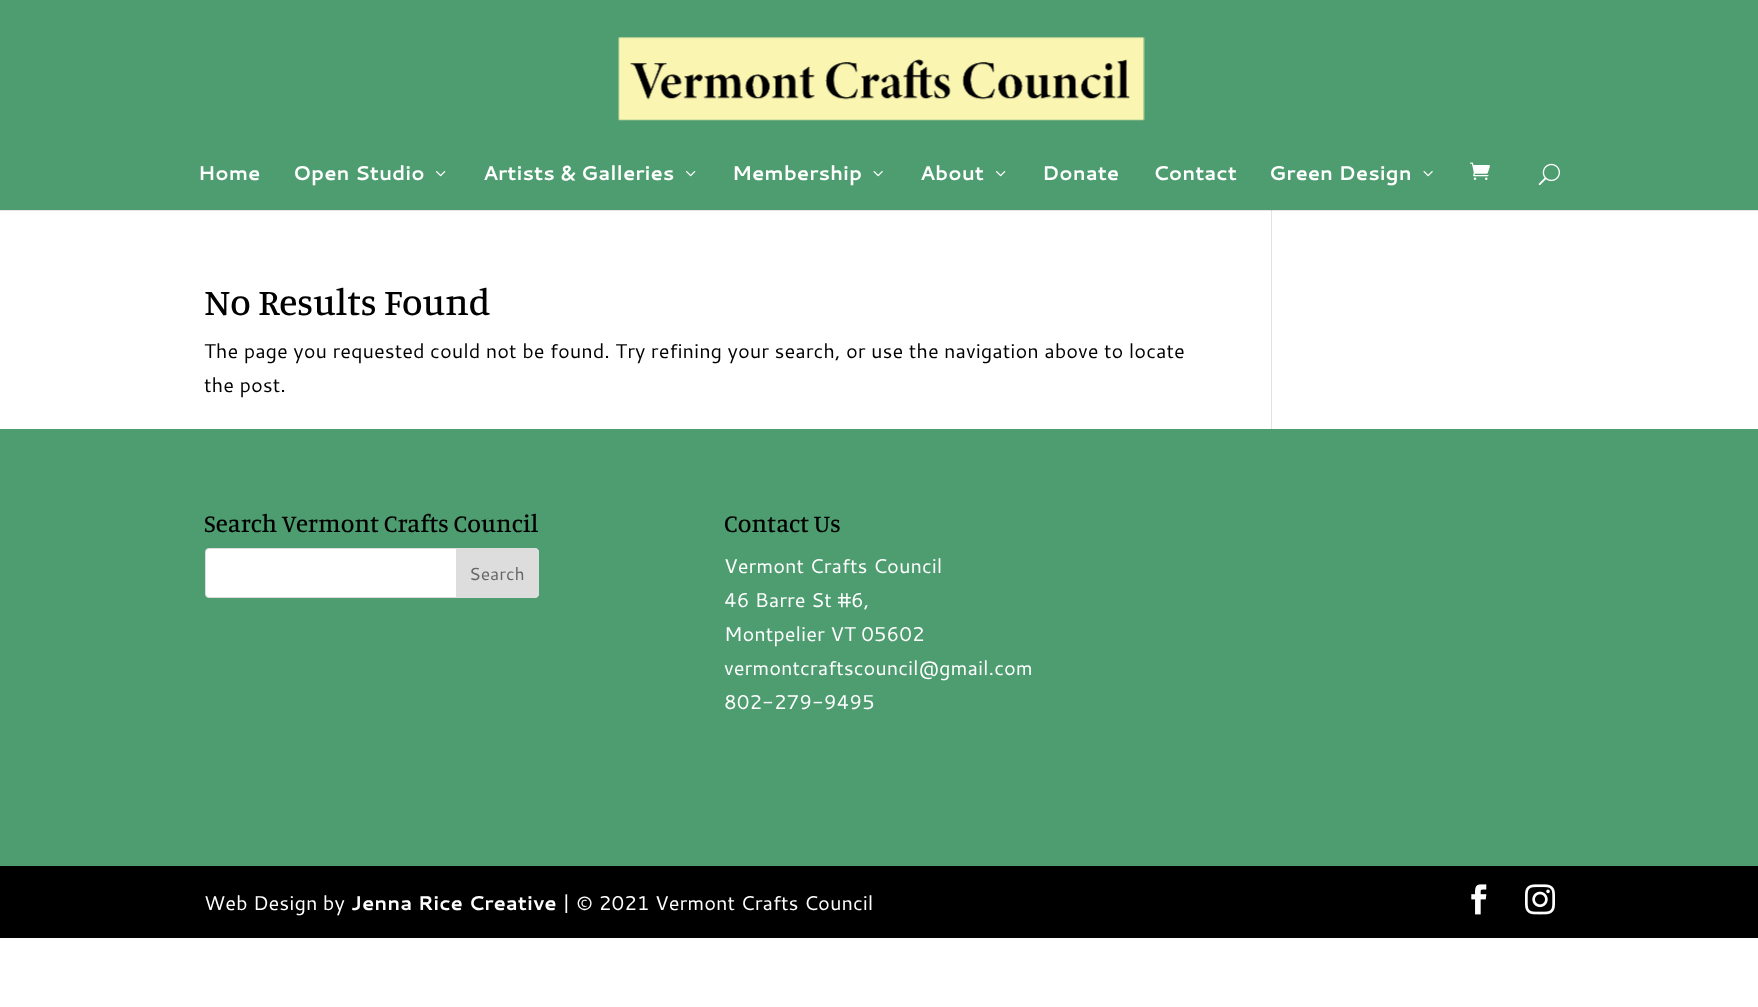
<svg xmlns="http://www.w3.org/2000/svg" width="1758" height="1007">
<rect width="100%" height="100%" fill="#fff"/>
<rect x="1271" y="210" width="1" height="219" fill="#e2e2e2"/>
<path d="M0 210v1h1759v-210v209z" fill="#0000001a"/>
<rect width="1758" height="210" fill="#4e9d70"/>
<image x="618" y="37" width="527" height="84" href="media/1.png"/>
<text x="198" y="180" style="font-family:Cantarell;font-size:20px;font-weight:bold;fill:#fff">Home</text>
<text x="293" y="180" style="font-family:Cantarell;font-size:20px;font-weight:bold;fill:#fff">Open Studio</text>
<image x="436" y="171" width="10" height="6" href="media/2.png"/>
<text x="483" y="180" style="font-family:Cantarell;font-size:20px;font-weight:bold;fill:#fff">Artists &amp; Galleries</text>
<image x="686" y="171" width="10" height="6" href="media/2.png"/>
<text x="732" y="180" style="font-family:Cantarell;font-size:20px;font-weight:bold;fill:#fff">Membership</text>
<image x="873" y="171" width="10" height="6" href="media/3.png"/>
<text x="920" y="180" style="font-family:Cantarell;font-size:20px;font-weight:bold;fill:#fff">About</text>
<image x="996" y="171" width="10" height="6" href="media/2.png"/>
<text x="1042" y="180" style="font-family:Cantarell;font-size:20px;font-weight:bold;fill:#fff">Donate</text>
<text x="1153" y="180" style="font-family:Cantarell;font-size:20px;font-weight:bold;fill:#fff">Contact</text>
<text x="1269" y="180" style="font-family:Cantarell;font-size:20px;font-weight:bold;fill:#fff">Green Design</text>
<image x="1423" y="171" width="10" height="6" href="media/3.png"/>
<image x="1470" y="162" width="20" height="18" href="media/4.png"/>
<image x="1538" y="163" width="22" height="23" href="media/5.png"/>
<text x="204" y="315" style="font-family:Manuale;font-size:37.5px;font-weight:500;fill:#000">No Results Found</text>
<text x="204" y="358" style="font-family:Cantarell;font-size:20px;fill:#000">The page you requested could not be found. Try refining your search, or use the navigation above to locate</text>
<text x="204" y="392" style="font-family:Cantarell;font-size:20px;fill:#000">the post.</text>
<rect y="429" width="1758" height="437" fill="#4e9d70"/>
<text x="204" y="532" style="font-family:Manuale;font-size:25px;font-weight:500;fill:#000">Search Vermont Crafts Council</text>
<rect x="205.5" y="548.5" width="333" height="49" rx="3.5" fill="#fff" stroke="#ddd"/>
<path d="M456.5 548.5h78.5c2 0 3.5 1.5 3.5 3.5v42c0 2-1.5 3.5-3.5 3.5h-78.5z" fill="#ddd" stroke="#ddd"/>
<text x="469" y="580" style="font-family:Cantarell;font-size:17.5px;fill:#666">Search</text>
<text x="724" y="532" style="font-family:Manuale;font-size:25px;font-weight:500;fill:#000">Contact Us</text>
<text x="724" y="573" style="font-family:Cantarell;font-size:20px;fill:#fff">Vermont Crafts Council</text>
<text x="724" y="607" style="font-family:Cantarell;font-size:20px;fill:#fff">46 Barre St #6,</text>
<text x="724" y="641" style="font-family:Cantarell;font-size:20px;fill:#fff">Montpelier VT 05602</text>
<text x="724" y="675" style="font-family:Cantarell;font-size:20px;fill:#fff">vermontcraftscouncil@gmail.com</text>
<text x="724" y="709" style="font-family:Cantarell;font-size:20px;fill:#fff">802-279-9495</text>
<rect y="866" width="1758" height="72" fill="#000"/>
<text x="204" y="910" style="font-family:Cantarell;font-size:20px;fill:#fff">Web Design by</text>
<text x="351" y="910" style="font-family:Cantarell;font-size:20px;font-weight:bold;fill:#fff">Jenna Rice Creative</text>
<text x="562" y="910" style="font-family:Cantarell;font-size:20px;fill:#fff">| © 2021 Vermont Crafts Council</text>
<image x="1471" y="884" width="16" height="31" href="media/6.png"/>
<image x="1525" y="884" width="30" height="31" href="media/7.png"/>
</svg>
